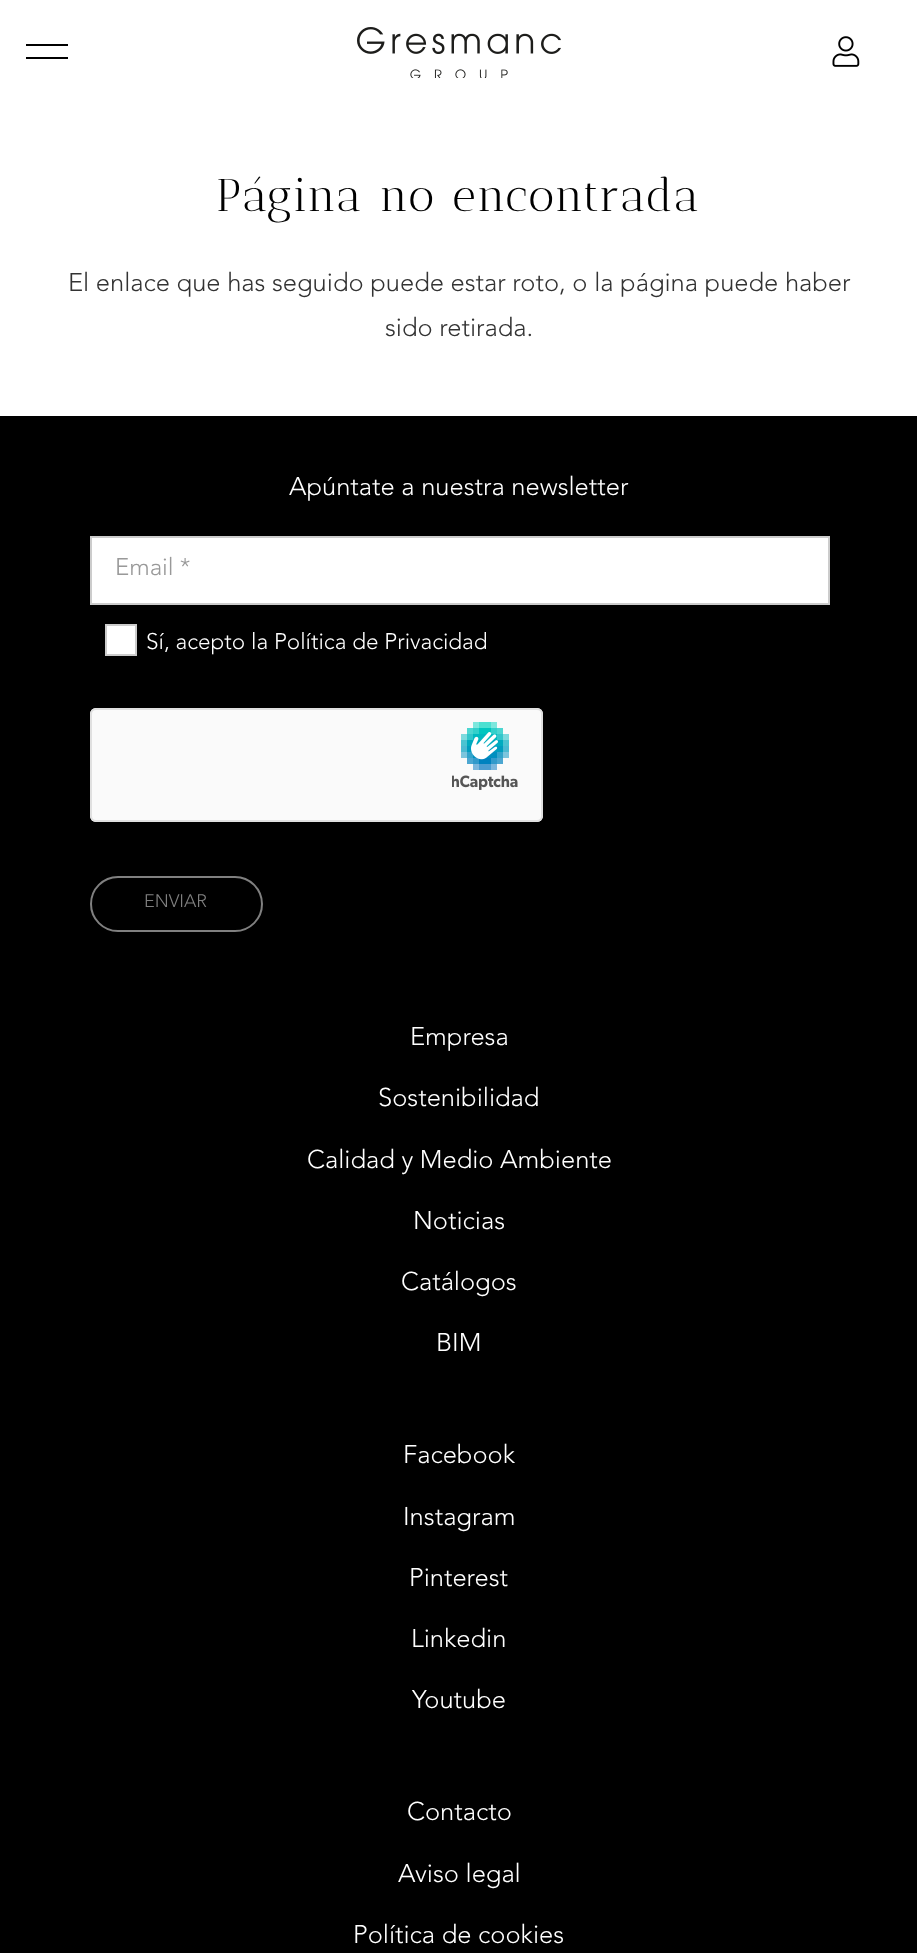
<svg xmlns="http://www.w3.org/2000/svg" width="917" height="1953">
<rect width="100%" height="100%" fill="#fff"/>
<rect x="26" y="57" width="42" height="2" fill="#000"/>
<rect x="26" y="44" width="42" height="2" fill="#000"/>
<image x="357" y="27" width="204" height="51" href="media/1.png"/>
<image x="832" y="36" width="28" height="31" href="media/2.png"/>
<text x="216" y="211" style="font-family:Antic Didone;font-size:45.9px;letter-spacing:2.25px;fill:#000">Página no encontrada</text>
<text x="68" y="291" style="font-family:Avenir;font-size:25.5px;font-weight:300;fill:#333">El enlace que has seguido puede estar roto, o la página puede haber</text>
<text x="385" y="336" style="font-family:Avenir;font-size:25.5px;font-weight:300;fill:#333">sido retirada.</text>
<rect y="416" width="917" height="1537" fill="#000"/>
<text x="289" y="495" style="font-family:Avenir;font-size:25.5px;font-weight:300;fill:#fff">Apúntate a nuestra newsletter</text>
<rect x="91" y="537" width="738" height="67" fill="#fff" stroke="#ccc" stroke-width="2"/>
<text x="115" y="575" style="font-family:Avenir;font-size:24px;font-weight:300;fill:#999">Email *</text>
<rect x="106" y="625" width="30" height="30" fill="#fff" stroke="#ccc" stroke-width="2"/>
<text x="146" y="649" style="font-family:Avenir;font-size:22.5px;font-weight:300;fill:#fff">Sí, acepto la Política de Privacidad</text>
<rect x="90" y="708" width="453" height="114" rx="6" fill="#fafafa"/>
<image x="452" y="722" width="66" height="68" href="media/3.png"/>
<rect x="91" y="709" width="451" height="112" rx="5" fill="none" stroke="#e0e0e0" stroke-width="2"/>
<rect x="91" y="877" width="171" height="54" rx="27" fill="none" stroke="#808080" stroke-width="2"/>
<text x="144" y="907" style="font-family:Avenir;font-size:18px;font-weight:300;fill:#808080">ENVIAR</text>
<text x="410" y="1045" style="font-family:Avenir;font-size:25.5px;font-weight:300;fill:#fff">Empresa</text>
<text x="378" y="1106" style="font-family:Avenir;font-size:25.5px;font-weight:300;fill:#fff">Sostenibilidad</text>
<text x="307" y="1168" style="font-family:Avenir;font-size:25.5px;font-weight:300;fill:#fff">Calidad y Medio Ambiente</text>
<text x="413" y="1229" style="font-family:Avenir;font-size:25.5px;font-weight:300;fill:#fff">Noticias</text>
<text x="401" y="1290" style="font-family:Avenir;font-size:25.5px;font-weight:300;fill:#fff">Catálogos</text>
<text x="436" y="1351" style="font-family:Avenir;font-size:25.5px;font-weight:300;fill:#fff">BIM</text>
<text x="403" y="1463" style="font-family:Avenir;font-size:25.5px;font-weight:300;fill:#fff">Facebook</text>
<text x="403" y="1525" style="font-family:Avenir;font-size:25.5px;font-weight:300;fill:#fff">Instagram</text>
<text x="409" y="1586" style="font-family:Avenir;font-size:25.5px;font-weight:300;fill:#fff">Pinterest</text>
<text x="411" y="1647" style="font-family:Avenir;font-size:25.5px;font-weight:300;fill:#fff">Linkedin</text>
<text x="412" y="1708" style="font-family:Avenir;font-size:25.5px;font-weight:300;fill:#fff">Youtube</text>
<text x="407" y="1820" style="font-family:Avenir;font-size:25.5px;font-weight:300;fill:#fff">Contacto</text>
<text x="398" y="1882" style="font-family:Avenir;font-size:25.5px;font-weight:300;fill:#fff">Aviso legal</text>
<text x="353" y="1943" style="font-family:Avenir;font-size:25.5px;font-weight:300;fill:#fff">Política de cookies</text>
</svg>
